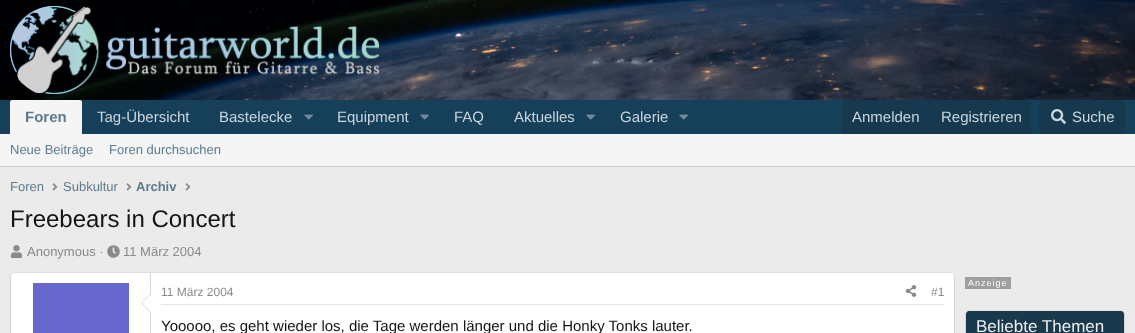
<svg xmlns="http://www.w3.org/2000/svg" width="1135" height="333">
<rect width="100%" height="100%" fill="#ebebeb"/>
<image x="0" y="0" width="1135" height="100" href="media/1.png"/>
<image x="10" y="6" width="370" height="88" href="media/2.png"/>
<rect y="100" width="1135" height="34" fill="#163f5a"/>
<path d="M12 100h68c1 0 2 1 2 2v32h-72v-32c0-1 1-2 2-2z" fill="#f5f5f5"/>
<text x="25" y="122" style="font-family:Liberation Sans;font-size:15px;font-weight:bold;fill:#5d7b8e">Foren</text>
<text x="97" y="122" style="font-family:Liberation Sans;font-size:15px;fill:#c9d6de">Tag-Übersicht</text>
<text x="219" y="122" style="font-family:Liberation Sans;font-size:15px;fill:#c9d6de">Bastelecke</text>
<image x="304" y="114" width="9" height="6" href="media/3.png"/>
<text x="337" y="122" style="font-family:Liberation Sans;font-size:15px;fill:#c9d6de">Equipment</text>
<image x="420" y="114" width="9" height="6" href="media/3.png"/>
<text x="454" y="122" style="font-family:Liberation Sans;font-size:15px;fill:#c9d6de">FAQ</text>
<text x="514" y="122" style="font-family:Liberation Sans;font-size:15px;fill:#c9d6de">Aktuelles</text>
<image x="586" y="114" width="9" height="6" href="media/3.png"/>
<text x="620" y="122" style="font-family:Liberation Sans;font-size:15px;fill:#c9d6de">Galerie</text>
<image x="679" y="114" width="9" height="6" href="media/3.png"/>
<path d="M846 100h181c2 0 4 2 4 4v30h-189v-30c0-2 2-4 4-4z" fill="#163950"/>
<text x="852" y="122" style="font-family:Liberation Sans;font-size:15px;fill:#c9d6de">Anmelden</text>
<rect x="930" y="100" width="1" height="34" fill="#163347"/>
<text x="941" y="122" style="font-family:Liberation Sans;font-size:15px;fill:#c9d6de">Registrieren</text>
<path d="M1043 100h78c2 0 4 2 4 4v30h-86v-30c0-2 2-4 4-4z" fill="#163950"/>
<image x="1051" y="109" width="15" height="15" href="media/4.png"/>
<text x="1072" y="122" style="font-family:Liberation Sans;font-size:15px;fill:#c9d6de">Suche</text>
<rect y="134" width="1135" height="32" fill="#f5f5f5"/>
<rect y="166" width="1135" height="1" fill="#ccc"/>
<text x="10" y="154" style="font-family:Liberation Sans;font-size:13px;fill:#5d7b8e">Neue Beiträge</text>
<text x="109" y="154" style="font-family:Liberation Sans;font-size:13px;fill:#5d7b8e">Foren durchsuchen</text>
<text x="10" y="191" style="font-family:Liberation Sans;font-size:13px;fill:#5d7b8e">Foren</text>
<image x="52" y="183" width="6" height="8" href="media/5.png"/>
<text x="63" y="191" style="font-family:Liberation Sans;font-size:13px;fill:#5d7b8e">Subkultur</text>
<image x="126" y="183" width="6" height="8" href="media/5.png"/>
<text x="136" y="191" style="font-family:Liberation Sans;font-size:13px;font-weight:bold;fill:#5d7b8e">Archiv</text>
<image x="185" y="183" width="6" height="8" href="media/5.png"/>
<text x="10" y="227" style="font-family:Liberation Sans;font-size:24px;fill:#141414">Freebears in Concert</text>
<image x="10" y="245" width="13" height="13" href="media/6.png"/>
<text x="27" y="256" style="font-family:Liberation Sans;font-size:13px;fill:#8a8a8a">Anonymous ·</text>
<image x="107" y="245" width="13" height="13" href="media/7.png"/>
<text x="123" y="256" style="font-family:Liberation Sans;font-size:13px;fill:#8a8a8a">11 März 2004</text>
<rect x="10" y="272" width="945" height="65" rx="4" fill="#fff"/>
<path d="M11.5 273.5l2.5-1h937l2.5 1" fill="none" stroke="#e0e0e0"/>
<path d="M953.5 273.5l1 2.5v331l-1 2.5" fill="none" stroke="#d6d6d6"/>
<path d="M11.5 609.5l-1-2.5v-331l1-2.5" fill="none" stroke="#d6d6d6"/>
<rect x="150" y="273" width="1" height="60" fill="#d6d6d6"/>
<rect x="33" y="283" width="96" height="50" fill="#66c"/>
<path d="M151 293v20l-10-10z" fill="#d6d6d6"/>
<path d="M151 294v18l-9-9z" fill="#fff"/>
<rect x="161" y="304" width="783" height="1" fill="#e6e6e6"/>
<text x="161" y="296" style="font-family:Liberation Sans;font-size:12px;fill:#8a8a8a">11 März 2004</text>
<image x="905" y="285" width="12" height="12" href="media/8.png"/>
<text x="931" y="296" style="font-family:Liberation Sans;font-size:12px;fill:#8a8a8a">#1</text>
<text x="161" y="331" style="font-family:Liberation Sans;font-size:15px;fill:#141414">Yooooo, es geht wieder los, die Tage werden länger und die Honky Tonks lauter.</text>
<rect x="965" y="277" width="46" height="12" fill="#9e9e9e"/>
<text x="968" y="286" style="font-family:Liberation Sans;font-size:9px;letter-spacing:1px;fill:#fff">Anzeige</text>
<path d="M966.5 311.5c.5-.5 1.5-1 2.5-1h152c1 0 2 .5 2.5 1" fill="none" stroke="#e0e0e0"/>
<path d="M1123.5 311.5c.5 .5 1 1.5 1 2.5v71c0 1-.5 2-1 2.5" fill="none" stroke="#d6d6d6"/>
<path d="M966.5 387.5c-.5-.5-1-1.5-1-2.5v-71c0-1 .5-2 1-2.5" fill="none" stroke="#d6d6d6"/>
<path d="M969 311h152c1.5 0 3 1.5 3 3v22h-158v-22c0-1.5 1.5-3 3-3z" fill="#19394d"/>
<text x="976" y="332" style="font-family:Liberation Sans;font-size:17px;fill:#eee">Beliebte Themen</text>
</svg>
